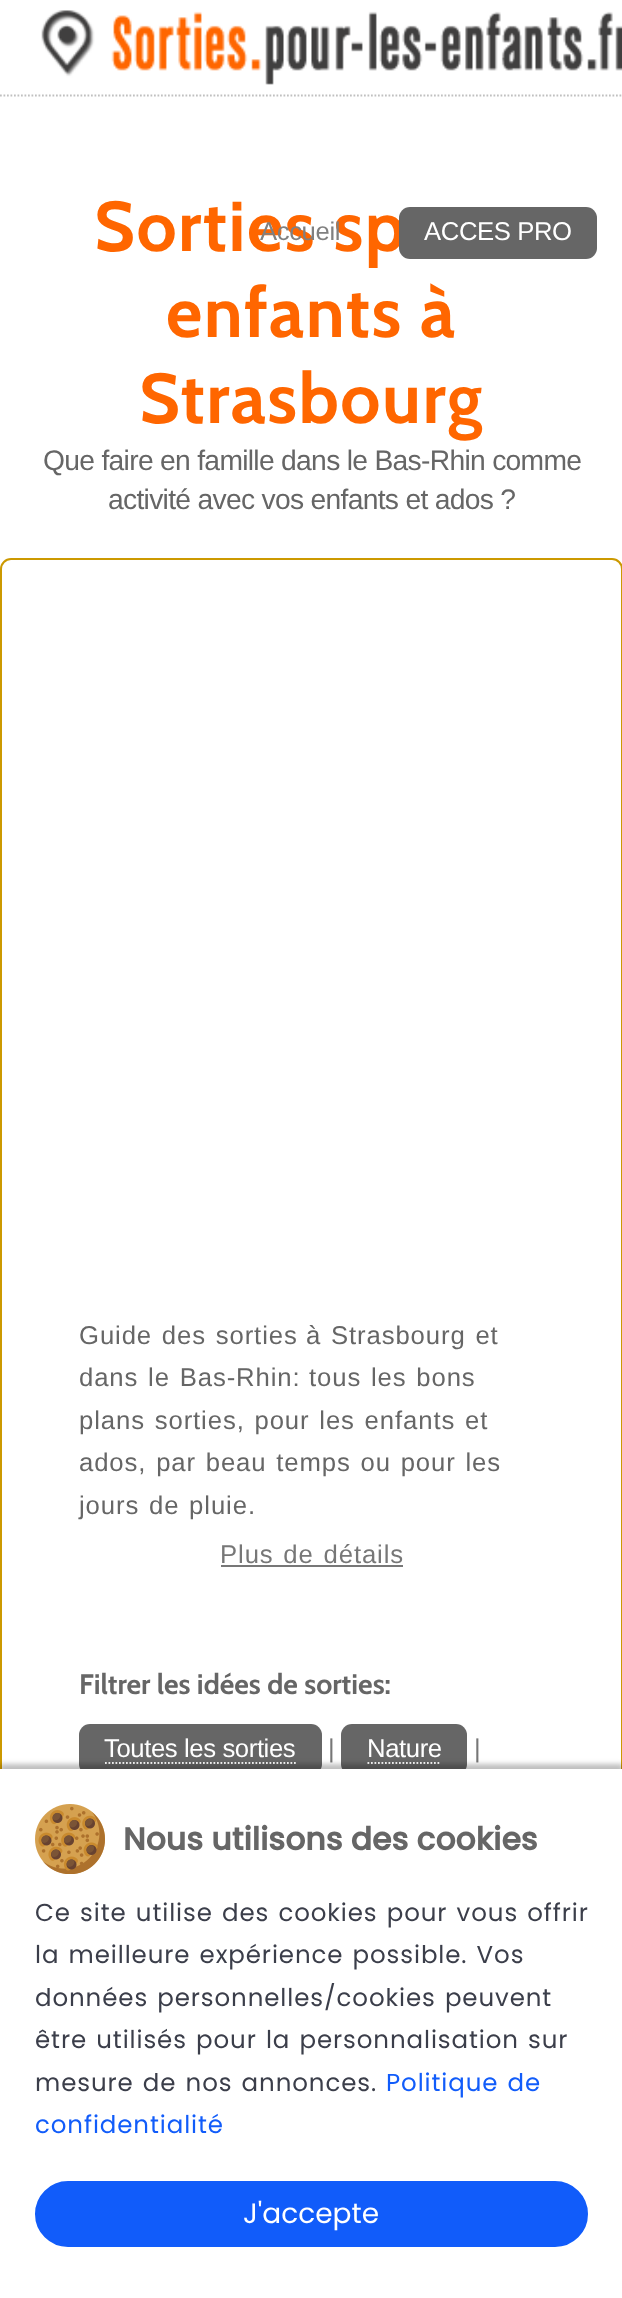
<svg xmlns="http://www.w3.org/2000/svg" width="622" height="2298">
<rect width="100%" height="100%" fill="#fff"/>
<text x="94" y="251" style="font-family:Cabin;font-size:70.5px;font-weight:bold;letter-spacing:1.5px;fill:#f60">Sorties sp</text>
<text x="166" y="337" style="font-family:Cabin;font-size:70.5px;font-weight:bold;letter-spacing:1.5px;fill:#f60">enfants à</text>
<text x="139" y="423" style="font-family:Cabin;font-size:70.5px;font-weight:bold;letter-spacing:1.5px;fill:#f60">Strasbourg</text>
<text x="43" y="470" style="font-family:Liberation Sans;font-size:28.25px;letter-spacing:-0.7px;fill:#666">Que faire en famille dans le Bas-Rhin comme</text>
<text x="108" y="509" style="font-family:Liberation Sans;font-size:28.25px;letter-spacing:-0.7px;fill:#666">activité avec vos enfants et ados ?</text>
<rect x="1" y="559" width="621" height="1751" rx="10" fill="none" stroke="#c90" stroke-width="2"/>
<text x="79" y="1344" word-spacing="1.75" style="font-family:Liberation Sans;font-size:25.7px;letter-spacing:0.9px;fill:#666">Guide des sorties</text>
<text x="306" y="1344" word-spacing="1.75" style="font-family:Liberation Sans;font-size:25.7px;letter-spacing:0.9px;fill:#666">à Strasbourg et</text>
<text x="79" y="1386" word-spacing="1.75" style="font-family:Liberation Sans;font-size:25.7px;letter-spacing:0.9px;fill:#666">dans le Bas-Rhin:</text>
<text x="309" y="1386" word-spacing="1.75" style="font-family:Liberation Sans;font-size:25.7px;letter-spacing:0.9px;fill:#666">tous les bons</text>
<text x="79" y="1429" word-spacing="1.75" style="font-family:Liberation Sans;font-size:25.7px;letter-spacing:0.9px;fill:#666">plans sorties, pour les enfants et</text>
<text x="79" y="1471" word-spacing="1.75" style="font-family:Liberation Sans;font-size:25.7px;letter-spacing:0.9px;fill:#666">ados, par beau temps ou pour les</text>
<text x="79" y="1514" word-spacing="1.75" style="font-family:Liberation Sans;font-size:25.7px;letter-spacing:0.9px;fill:#666">jours de pluie.</text>
<text x="220" y="1563" word-spacing="1.75" style="font-family:Liberation Sans;font-size:25.7px;letter-spacing:0.9px;fill:#777">Plus de détails</text>
<rect x="221" y="1565" width="182" height="2" fill="#777"/>
<text x="79" y="1694" style="font-family:Cabin;font-size:28.25px;font-weight:bold;fill:#666">Filtrer les idées de sorties:</text>
<rect x="79" y="1724" width="243" height="51" rx="11" fill="#666"/>
<text x="104" y="1757" style="font-family:Liberation Sans;font-size:25.7px;letter-spacing:-0.4px;fill:#fff">Toutes les sorties</text>
<path d="M105 1763h191" fill="none" stroke="#fff" stroke-width="1.8" stroke-dasharray="1.75 1.75"/>
<text x="328" y="1757" style="font-family:Liberation Sans;font-size:25.7px;letter-spacing:-0.4px;fill:#777">|</text>
<rect x="341" y="1724" width="126" height="51" rx="11" fill="#666"/>
<text x="367" y="1757" style="font-family:Liberation Sans;font-size:25.7px;letter-spacing:-0.4px;fill:#fff">Nature</text>
<path d="M367.5 1763h73.5" fill="none" stroke="#fff" stroke-width="1.8" stroke-dasharray="1.75 1.75"/>
<text x="474" y="1757" style="font-family:Liberation Sans;font-size:25.7px;letter-spacing:-0.4px;fill:#777">|</text>
<path d="M0 95.5h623" fill="none" stroke="#c0c0c0" stroke-width="1.8" stroke-dasharray="1.75 1.75"/>
<image x="41" y="10" width="581" height="75" href="media/1.png"/>
<text x="260" y="240" style="font-family:Liberation Sans;font-size:25.7px;letter-spacing:-0.4px;fill:#808080">Accueil</text>
<rect x="399" y="207" width="198" height="52" rx="11" fill="#666"/>
<text x="424" y="240" style="font-family:Liberation Sans;font-size:25.7px;letter-spacing:-0.4px;fill:#fff">ACCES PRO</text>
<rect y="1764" width="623" height="530" fill="#00000040" filter="blur(2.5px)"/>
<rect y="1769" width="622" height="529" fill="#fff"/>
<image x="35" y="1804" width="70" height="70" href="media/2.png"/>
<text x="123" y="1850" style="font-family:Poppins;font-size:31.5px;font-weight:bold;fill:#666">Nous utilisons des cookies</text>
<text x="35" y="1921" word-spacing="1.75" style="font-family:Poppins;font-size:24.5px;letter-spacing:0.9px;fill:#3b3e4a">Ce site utilise des cookies pour vous offrir</text>
<text x="35" y="1963" word-spacing="1.75" style="font-family:Poppins;font-size:24.5px;letter-spacing:0.9px;fill:#3b3e4a">la meilleure expérience possible. Vos</text>
<text x="35" y="2006" word-spacing="1.75" style="font-family:Poppins;font-size:24.5px;letter-spacing:0.9px;fill:#3b3e4a">données personnelles/cookies peuvent</text>
<text x="35" y="2048" word-spacing="1.75" style="font-family:Poppins;font-size:24.5px;letter-spacing:0.9px;fill:#3b3e4a">être utilisés pour la personnalisation sur</text>
<text x="35" y="2091" word-spacing="1.75" style="font-family:Poppins;font-size:24.5px;letter-spacing:0.9px;fill:#3b3e4a">mesure de nos annonces.</text>
<text x="386" y="2091" word-spacing="1.75" style="font-family:Poppins;font-size:24.5px;letter-spacing:0.9px;fill:#115cfa">Politique de</text>
<text x="35" y="2133" style="font-family:Poppins;font-size:24.5px;letter-spacing:0.9px;fill:#115cfa">confidentialité</text>
<rect x="36" y="2182" width="551" height="64" rx="32" fill="#115cfa" stroke="#115cfa" stroke-width="2"/>
<text x="243" y="2223" style="font-family:Poppins;font-size:28px;fill:#fff">J'accepte</text>
</svg>
